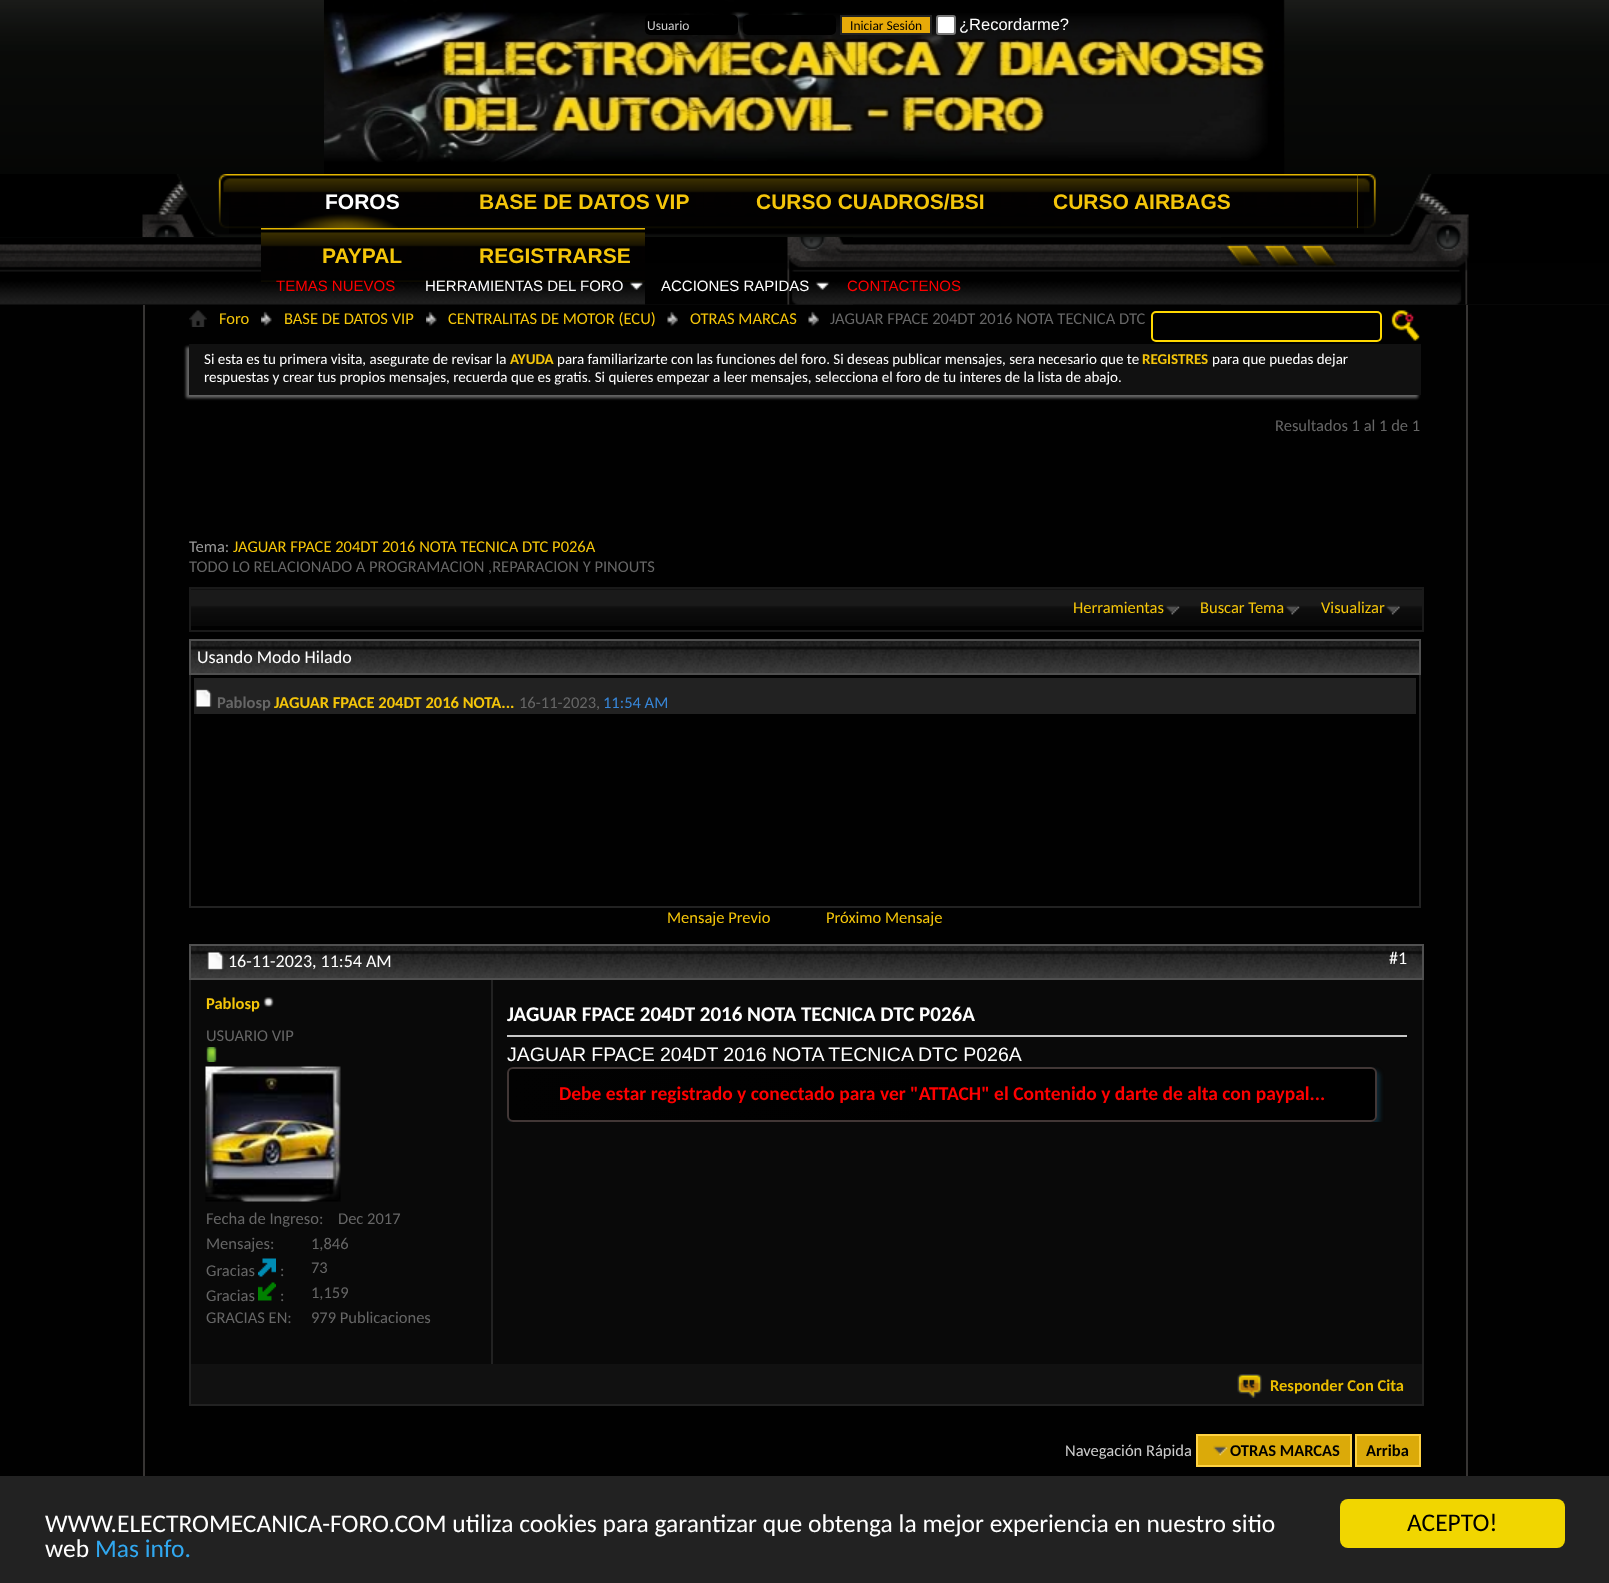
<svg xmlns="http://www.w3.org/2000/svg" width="1609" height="1583">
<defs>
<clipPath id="clip1"><rect x="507" y="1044" width="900" height="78"/></clipPath>
<clipPath id="clip2"><rect x="507" y="1067" width="870" height="55" rx="6"/></clipPath>
<linearGradient id="g1" gradientUnits="userSpaceOnUse" x1="509" y1="1094" x2="1376" y2="1094"><stop offset="0" stop-color="#020202"/><stop offset="0.5" stop-color="#000"/><stop offset="1" stop-color="#000"/></linearGradient>
</defs>
<rect width="100%" height="100%" fill="#010101"/>
<image x="0" y="237" width="1221" height="1" href="media/1.png"/>
<image x="0" y="0" width="1609" height="174" href="media/2.png"/>
<image x="324" y="0" width="961" height="174" href="media/3.png"/>
<rect x="645" y="15" width="93" height="20" rx="5" fill="#000"/>
<text x="647" y="30" style="font-family:Carlito;font-size:13.5px;fill:#ccc">Usuario</text>
<rect x="743" y="15" width="93" height="20" rx="5" fill="#000"/>
<rect x="841" y="16" width="90" height="18" fill="#e7aa09" stroke="#222" stroke-width="2"/>
<text x="850" y="30" style="font-family:Carlito;font-size:13.5px;fill:#000">Iniciar Sesión</text>
<rect x="937" y="16" width="18" height="18" rx="2" fill="#fff" stroke="#767676" stroke-width="2"/>
<text x="959" y="30" style="font-family:Liberation Sans;font-size:16.5px;fill:#fff">¿Recordarme?</text>
<image x="229" y="174" width="1135" height="63" href="media/4.png"/>
<image x="0" y="174" width="229" height="63" href="media/5.png"/>
<rect x="1357" y="174" width="1" height="54" fill="#b18e01"/>
<image x="231" y="174" width="1127" height="54" href="media/6.png"/>
<image x="289" y="214" width="109" height="14" href="media/7.png"/>
<text x="325" y="209" style="font-family:Liberation Sans;font-size:21px;font-weight:bold;fill:#fff">FOROS</text>
<image x="426" y="174" width="278" height="54" href="media/8.png"/>
<text x="479" y="209" style="font-family:Liberation Sans;font-size:21px;font-weight:bold;fill:#f4c50a">BASE DE DATOS VIP</text>
<image x="703" y="174" width="298" height="54" href="media/9.png"/>
<text x="756" y="209" style="font-family:Liberation Sans;font-size:21px;font-weight:bold;fill:#f4c50a">CURSO CUADROS/BSI</text>
<image x="1000" y="174" width="245" height="54" href="media/10.png"/>
<text x="1053" y="209" style="font-family:Liberation Sans;font-size:21px;font-weight:bold;fill:#f4c50a">CURSO AIRBAGS</text>
<image x="0" y="238" width="1609" height="67" href="media/16.png"/>
<image x="261" y="228" width="165" height="54" href="media/11.png"/>
<text x="322" y="263" style="font-family:Liberation Sans;font-size:21px;font-weight:bold;fill:#f4c50a">PAYPAL</text>
<image x="426" y="228" width="219" height="54" href="media/12.png"/>
<text x="479" y="263" style="font-family:Liberation Sans;font-size:21px;font-weight:bold;fill:#f4c50a">REGISTRARSE</text>
<text x="276" y="291" style="font-family:Liberation Sans;font-size:15px;fill:#f00">TEMAS NUEVOS</text>
<text x="425" y="291" style="font-family:Liberation Sans;font-size:15px;fill:#fff">HERRAMIENTAS DEL FORO</text>
<image x="629" y="281" width="15" height="9" href="media/13.png"/>
<image x="645" y="237" width="208" height="68" href="media/17.png"/>
<text x="661" y="291" style="font-family:Liberation Sans;font-size:15px;fill:#fff">ACCIONES RAPIDAS</text>
<image x="815" y="281" width="15" height="9" href="media/14.png"/>
<text x="847" y="291" style="font-family:Liberation Sans;font-size:15px;fill:#f00">CONTACTENOS</text>
<image x="1364" y="174" width="245" height="63" href="media/15.png"/>
<image x="1221" y="237" width="388" height="68" href="media/18.png"/>
<rect x="1466" y="305" width="2" height="1171" fill="#373534"/>
<rect x="143" y="305" width="2" height="1171" fill="#373534"/>
<image x="189" y="310" width="18" height="17" href="media/19.png"/>
<image x="261" y="311" width="11" height="16" href="media/20.png"/>
<text x="219" y="324" style="font-family:Carlito;font-size:16.5px;fill:#f4c50a">Foro</text>
<image x="426" y="311" width="11" height="16" href="media/20.png"/>
<text x="284" y="324" style="font-family:Carlito;font-size:16.5px;fill:#f4c50a">BASE DE DATOS VIP</text>
<image x="667" y="311" width="11" height="16" href="media/21.png"/>
<text x="448" y="324" style="font-family:Carlito;font-size:16.5px;fill:#f4c50a">CENTRALITAS DE MOTOR (ECU)</text>
<image x="808" y="311" width="11" height="16" href="media/22.png"/>
<text x="690" y="324" style="font-family:Carlito;font-size:16.5px;fill:#f4c50a">OTRAS MARCAS</text>
<text x="830" y="324" style="font-family:Carlito;font-size:16.5px;fill:#666">JAGUAR FPACE 204DT 2016 NOTA TECNICA DTC</text>
<rect x="186" y="347" width="1232" height="51" fill="#666" filter="blur(1.5px)"/>
<rect x="1152" y="312" width="229" height="29" rx="4" fill="none" stroke="#ffd800" stroke-width="2"/>
<image x="1391" y="310" width="29" height="31" href="media/23.png"/>
<rect x="189" y="344" width="1232" height="51" fill="#111"/>
<text x="204" y="364" style="font-family:Carlito;font-size:15px;fill:#fff">Si esta es tu primera visita, asegurate de revisar la</text>
<text x="510" y="364" style="font-family:Carlito;font-size:15px;font-weight:bold;fill:#f4c50a">AYUDA</text>
<text x="557" y="364" style="font-family:Carlito;font-size:15px;fill:#fff">para familiarizarte con las funciones del foro. Si deseas publicar mensajes, sera necesario que te</text>
<text x="1142" y="364" style="font-family:Carlito;font-size:15px;font-weight:bold;fill:#f4c50a">REGISTRES</text>
<text x="1212" y="364" style="font-family:Carlito;font-size:15px;fill:#fff">para que puedas dejar</text>
<text x="204" y="382" style="font-family:Carlito;font-size:15px;fill:#fff">respuestas y crear tus propios mensajes, recuerda que es gratis. Si quieres empezar a leer mensajes, selecciona el foro de tu interes de la lista de abajo.</text>
<text x="1275" y="431" style="font-family:Carlito;font-size:16.5px;fill:#666">Resultados 1 al 1 de 1</text>
<text x="189" y="552" style="font-family:Carlito;font-size:16.5px;fill:#999">Tema:</text>
<text x="233" y="552" style="font-family:Carlito;font-size:16.5px;fill:#f4c50a">JAGUAR FPACE 204DT 2016 NOTA TECNICA DTC P026A</text>
<text x="189" y="572" style="font-family:Carlito;font-size:16.5px;fill:#666">TODO LO RELACIONADO A PROGRAMACION ,REPARACION Y PINOUTS</text>
<image x="191" y="589" width="1231" height="37" href="media/24.png"/>
<rect x="190" y="588" width="1233" height="43" fill="none" stroke="#1a1a1a" stroke-width="2"/>
<image x="1165" y="605" width="15" height="10" href="media/25.png"/>
<text x="1073" y="613" style="font-family:Carlito;font-size:16.5px;fill:#f4c50a">Herramientas</text>
<image x="1285" y="605" width="15" height="10" href="media/26.png"/>
<text x="1200" y="613" style="font-family:Carlito;font-size:16.5px;fill:#f4c50a">Buscar Tema</text>
<image x="1386" y="605" width="14" height="10" href="media/27.png"/>
<text x="1321" y="613" style="font-family:Carlito;font-size:16.5px;fill:#f4c50a">Visualizar</text>
<image x="191" y="641" width="1228" height="32" href="media/28.png"/>
<rect x="190" y="640" width="1230" height="34" fill="none" stroke="#505050" stroke-width="2"/>
<text x="197" y="663" style="font-family:Carlito;font-size:18px;fill:#fff">Usando Modo Hilado</text>
<rect x="1419" y="675" width="2" height="233" fill="#222"/>
<rect x="189" y="906" width="1232" height="2" fill="#222"/>
<rect x="189" y="675" width="2" height="233" fill="#222"/>
<rect x="194" y="678" width="1222" height="36" fill="#222"/>
<image x="195" y="689" width="17" height="18" href="media/29.png"/>
<text x="217" y="708" style="font-family:Carlito;font-size:16.5px;font-weight:bold;fill:#666">Pablosp</text>
<text x="274" y="708" style="font-family:Carlito;font-size:16.5px;font-weight:bold;fill:#f4c50a">JAGUAR FPACE 204DT 2016 NOTA...</text>
<text x="519" y="708" style="font-family:Carlito;font-size:16.5px;fill:#666">16-11-2023,</text>
<text x="603" y="708" style="font-family:Carlito;font-size:16.5px;fill:#3786d8">11:54 AM</text>
<text x="667" y="923" style="font-family:Carlito;font-size:16.5px;fill:#f4c50a">Mensaje Previo</text>
<text x="826" y="923" style="font-family:Carlito;font-size:16.5px;fill:#f4c50a">Próximo Mensaje</text>
<rect x="190" y="945" width="1233" height="460" fill="none" stroke="#222" stroke-width="2"/>
<image x="191" y="946" width="1231" height="32" href="media/30.png"/>
<rect x="190" y="945" width="1233" height="34" fill="none" stroke="#505050" stroke-width="2"/>
<image x="207" y="951" width="17" height="19" href="media/31.png"/>
<text x="228" y="967" style="font-family:Carlito;font-size:18px;fill:#fff">16-11-2023, 11:54 AM</text>
<text x="1389" y="964" style="font-family:Carlito;font-size:18px;fill:#fff">#1</text>
<rect x="191" y="980" width="1231" height="384" fill="#090909"/>
<text x="206" y="1009" style="font-family:Carlito;font-size:16.5px;font-weight:bold;fill:#f4c50a">Pablosp</text>
<image x="263" y="997" width="11" height="10" href="media/32.png"/>
<text x="206" y="1041" style="font-family:Carlito;font-size:16.5px;fill:#666">USUARIO VIP</text>
<image x="206" y="1047" width="11" height="15" href="media/33.png"/>
<image x="205" y="1066" width="136" height="136" href="media/34.png"/>
<text x="206" y="1224" style="font-family:Carlito;font-size:16.5px;fill:#666">Fecha de Ingreso:</text>
<text x="338" y="1224" style="font-family:Carlito;font-size:16.5px;fill:#666">Dec 2017</text>
<text x="206" y="1249" style="font-family:Carlito;font-size:16.5px;fill:#666">Mensajes:</text>
<text x="311" y="1249" style="font-family:Carlito;font-size:16.5px;fill:#666">1,846</text>
<text x="206" y="1276" style="font-family:Carlito;font-size:16.5px;fill:#666">Gracias</text>
<image x="258" y="1258" width="18" height="19" href="media/35.png"/>
<text x="280" y="1276" style="font-family:Carlito;font-size:16.5px;fill:#666">:</text>
<text x="311" y="1273" style="font-family:Carlito;font-size:16.5px;fill:#666">73</text>
<text x="206" y="1301" style="font-family:Carlito;font-size:16.5px;fill:#666">Gracias</text>
<image x="258" y="1282" width="18" height="19" href="media/36.png"/>
<text x="280" y="1301" style="font-family:Carlito;font-size:16.5px;fill:#666">:</text>
<text x="311" y="1298" style="font-family:Carlito;font-size:16.5px;fill:#666">1,159</text>
<text x="206" y="1323" style="font-family:Carlito;font-size:16.5px;fill:#666">GRACIAS EN:</text>
<text x="311" y="1323" style="font-family:Carlito;font-size:16.5px;fill:#666">979 Publicaciones</text>
<rect x="491" y="980" width="2" height="384" fill="#222"/>
<rect x="507" y="1035" width="900" height="2" fill="#c8c8c8"/>
<text x="507" y="1021" style="font-family:Carlito;font-size:21px;font-weight:bold;fill:#fff">JAGUAR FPACE 204DT 2016 NOTA TECNICA DTC P026A</text>
<text x="507" y="1061" word-spacing="-0.25" style="font-family:Liberation Sans;font-size:19.5px;fill:#fff">JAGUAR FPACE 204DT 2016 NOTA TECNICA DTC P026A</text>
<g clip-path="url(#clip1)">
<rect x="510" y="1070" width="870" height="55" rx="6" fill="#144a6280" filter="blur(2px)"/>
</g>
<g clip-path="url(#clip2)">
<rect x="509" y="1067" width="867" height="55" fill="url(#g1)"/>
</g>
<rect x="508" y="1068" width="868" height="53" rx="5" fill="none" stroke="#423736" stroke-width="2"/>
<text x="559" y="1100" style="font-family:Carlito;font-size:19.5px;font-weight:bold;fill:#f00">Debe estar registrado y conectado para ver "ATTACH" el Contenido y darte de alta con paypal...</text>
<rect x="191" y="1364" width="1231" height="40" fill="#111"/>
<image x="1237" y="1374" width="25" height="24" href="media/37.png"/>
<text x="1270" y="1391" style="font-family:Carlito;font-size:16.5px;font-weight:bold;fill:#eabd00">Responder Con Cita</text>
<text x="1065" y="1456" style="font-family:Carlito;font-size:16.5px;fill:#ccc">Navegación Rápida</text>
<rect x="1197" y="1435" width="154" height="31" fill="#dbaa09" stroke="#ffd242" stroke-width="2"/>
<image x="1213" y="1445" width="15" height="11" href="media/38.png"/>
<text x="1230" y="1456" style="font-family:Carlito;font-size:16.5px;font-weight:bold;fill:#000">OTRAS MARCAS</text>
<rect x="1356" y="1435" width="64" height="31" fill="#dbaa09" stroke="#ffd242" stroke-width="2"/>
<text x="1366" y="1456" style="font-family:Carlito;font-size:16.5px;font-weight:bold;fill:#000">Arriba</text>
<rect y="1476" width="1609" height="107" fill="#222"/>
<text x="45" y="1532" style="font-family:Carlito;font-size:25.5px;fill:#fff">WWW.ELECTROMECANICA-FORO.COM utiliza cookies para garantizar que obtenga la mejor experiencia en nuestro sitio</text>
<text x="45" y="1557" style="font-family:Carlito;font-size:25.5px;fill:#fff">web</text>
<text x="95" y="1557" style="font-family:Carlito;font-size:25.5px;fill:#31a8f0">Mas info.</text>
<rect x="1340" y="1499" width="225" height="49" rx="8" fill="#f1d600"/>
<text x="1407" y="1531" style="font-family:Carlito;font-size:25.5px;fill:#000">ACEPTO!</text>
</svg>
